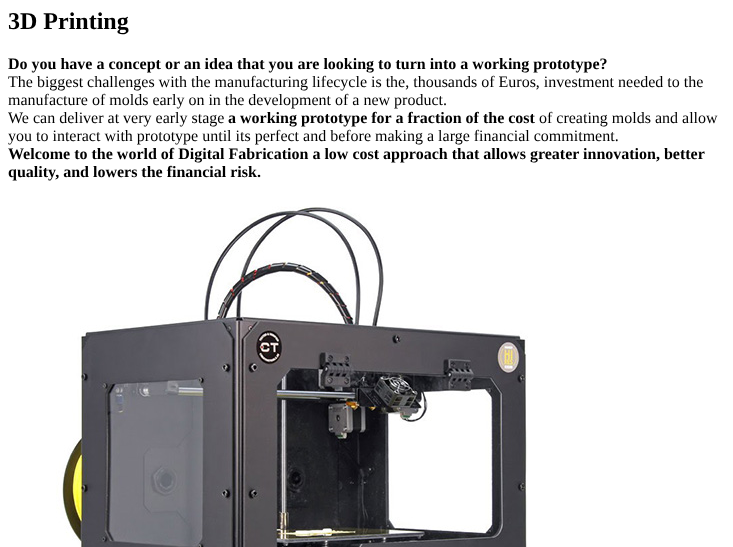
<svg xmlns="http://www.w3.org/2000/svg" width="733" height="547">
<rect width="100%" height="100%" fill="#fff"/>
<text x="8" y="29" style="font-family:Liberation Serif;font-size:24px;font-weight:bold;fill:#000">3D Printing</text>
<text x="8" y="69" style="font-family:Liberation Serif;font-size:16px;font-weight:bold;fill:#000">Do you have a concept or an idea that you are looking to turn into a working prototype?</text>
<text x="8" y="87" style="font-family:Liberation Serif;font-size:16px;fill:#000">The biggest challenges with the manufacturing lifecycle is the, thousands of Euros, investment needed to the</text>
<text x="8" y="105" style="font-family:Liberation Serif;font-size:16px;fill:#000">manufacture of molds early on in the development of a new product.</text>
<text x="8" y="123" style="font-family:Liberation Serif;font-size:16px;fill:#000">We can deliver at very early stage</text>
<text x="228" y="123" style="font-family:Liberation Serif;font-size:16px;font-weight:bold;fill:#000">a working prototype for a fraction of the cost</text>
<text x="539" y="123" style="font-family:Liberation Serif;font-size:16px;fill:#000">of creating molds and allow</text>
<text x="8" y="141" style="font-family:Liberation Serif;font-size:16px;fill:#000">you to interact with prototype until its perfect and before making a large financial commitment.</text>
<text x="8" y="159" style="font-family:Liberation Serif;font-size:16px;font-weight:bold;fill:#000">Welcome to the world of Digital Fabrication a low cost approach that allows greater innovation, better</text>
<text x="8" y="177" style="font-family:Liberation Serif;font-size:16px;font-weight:bold;fill:#000">quality, and lowers the financial risk.</text>
<image x="56" y="206" width="472" height="341" href="media/1.png"/>
</svg>
